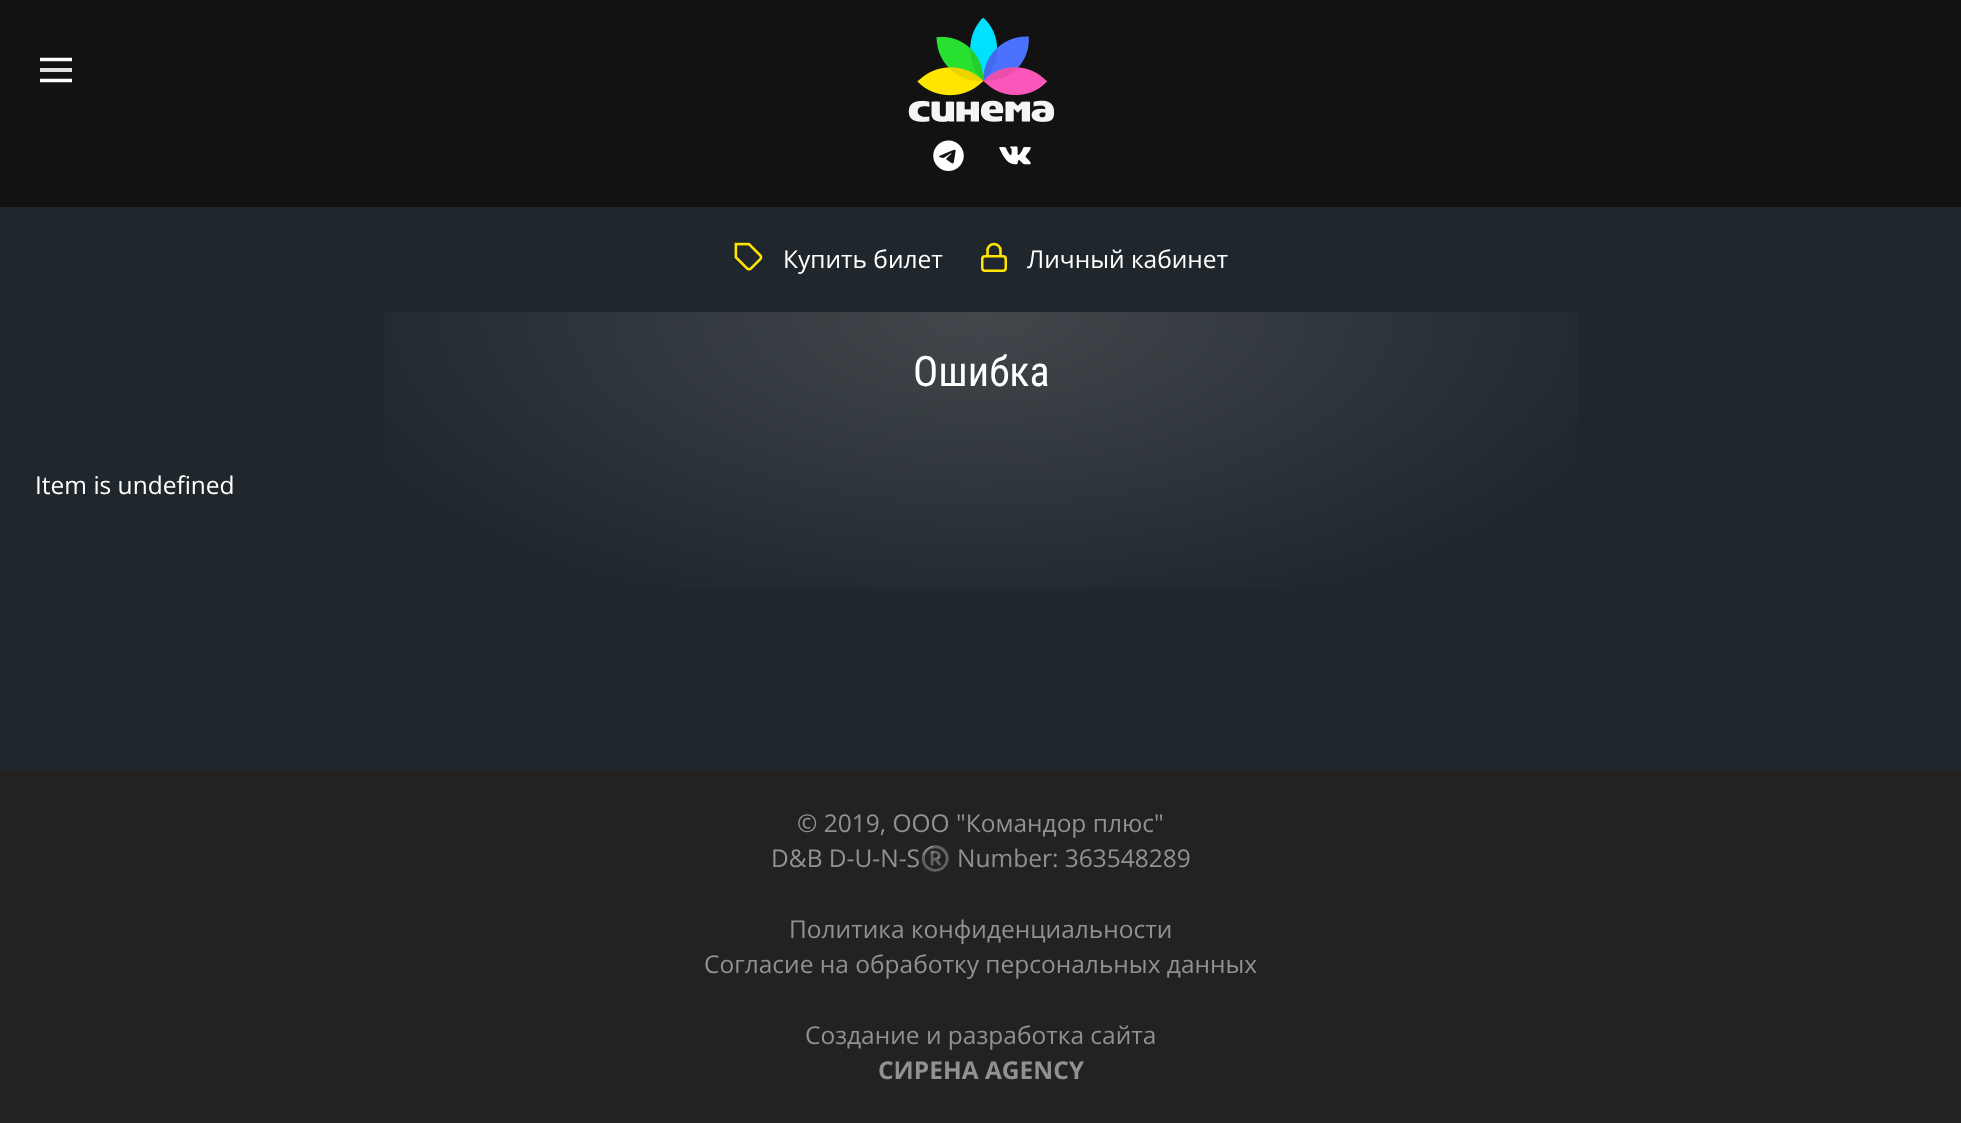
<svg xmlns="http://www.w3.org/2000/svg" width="1961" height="1123">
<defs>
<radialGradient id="g1" gradientUnits="userSpaceOnUse" cx="0" cy="0" r="1" gradientTransform="matrix(1387 0 0 648 981 312)"><stop offset="0" stop-color="#fff" stop-opacity="0.15"/><stop offset="0.5" stop-color="#fff" stop-opacity="0"/></radialGradient>
</defs>
<rect width="100%" height="100%" fill="#121212"/>
<rect x="40" y="68" width="32" height="4" fill="#e1e1e1"/>
<path d="M40 59.5h32m-32 21h32" fill="none" stroke="#fff" stroke-width="3.5"/>
<image x="908" y="18" width="146" height="104" href="media/1.png"/>
<image x="933" y="140" width="31" height="31" href="media/2.png"/>
<image x="999" y="146" width="32" height="19" href="media/3.png"/>
<rect y="207" width="1961" height="563" fill="#20272c"/>
<image x="734" y="242" width="29" height="29" href="media/4.png"/>
<text x="783" y="268" style="font-family:Open Sans;font-size:24.5px;fill:#fff">Купить билет</text>
<rect x="982.25" y="256.25" width="23.5" height="14.5" rx="2.75" fill="none" stroke="#ffe500" stroke-width="2.5"/>
<path d="M987.5 256v-5.5c0-3.5 3-6.5 6.5-6.5c3.5 0 6.5 3 6.5 6.5v5.5" fill="none" stroke="#ffe500" stroke-width="2.6"/>
<text x="1027" y="268" style="font-family:Open Sans;font-size:24.5px;fill:#fff">Личный кабинет</text>
<rect x="384" y="312" width="1194" height="277" fill="url(#g1)"/>
<text x="913" y="386" style="font-family:Roboto Condensed;font-size:42px;fill:#fff">Ошибка</text>
<text x="35" y="494" style="font-family:Open Sans;font-size:24.5px;fill:#fff">Item is undefined</text>
<rect y="770" width="1961" height="353" fill="#222"/>
<text x="797" y="832" style="font-family:Open Sans;font-size:24.5px;fill:#919191">© 2019, ООО "Командор плюс"</text>
<text x="771" y="867" style="font-family:Open Sans;font-size:24.5px;fill:#919191">D&amp;B D-U-N-S</text>
<text x="920" y="867" style="font-family:Noto Color Emoji;font-size:24.5px;fill:#919191">®️</text>
<text x="957" y="867" style="font-family:Open Sans;font-size:24.5px;fill:#919191">Number: 363548289</text>
<text x="789" y="938" style="font-family:Open Sans;font-size:24.5px;fill:#919191">Политика конфиденциальности</text>
<text x="704" y="973" style="font-family:Open Sans;font-size:24.5px;fill:#919191">Согласие на обработку персональных данных</text>
<text x="805" y="1044" style="font-family:Open Sans;font-size:24.5px;fill:#919191">Создание и разработка сайта</text>
<text x="878" y="1079" style="font-family:Open Sans;font-size:24.5px;font-weight:bold;fill:#919191">СИРЕНА AGENCY</text>
</svg>
